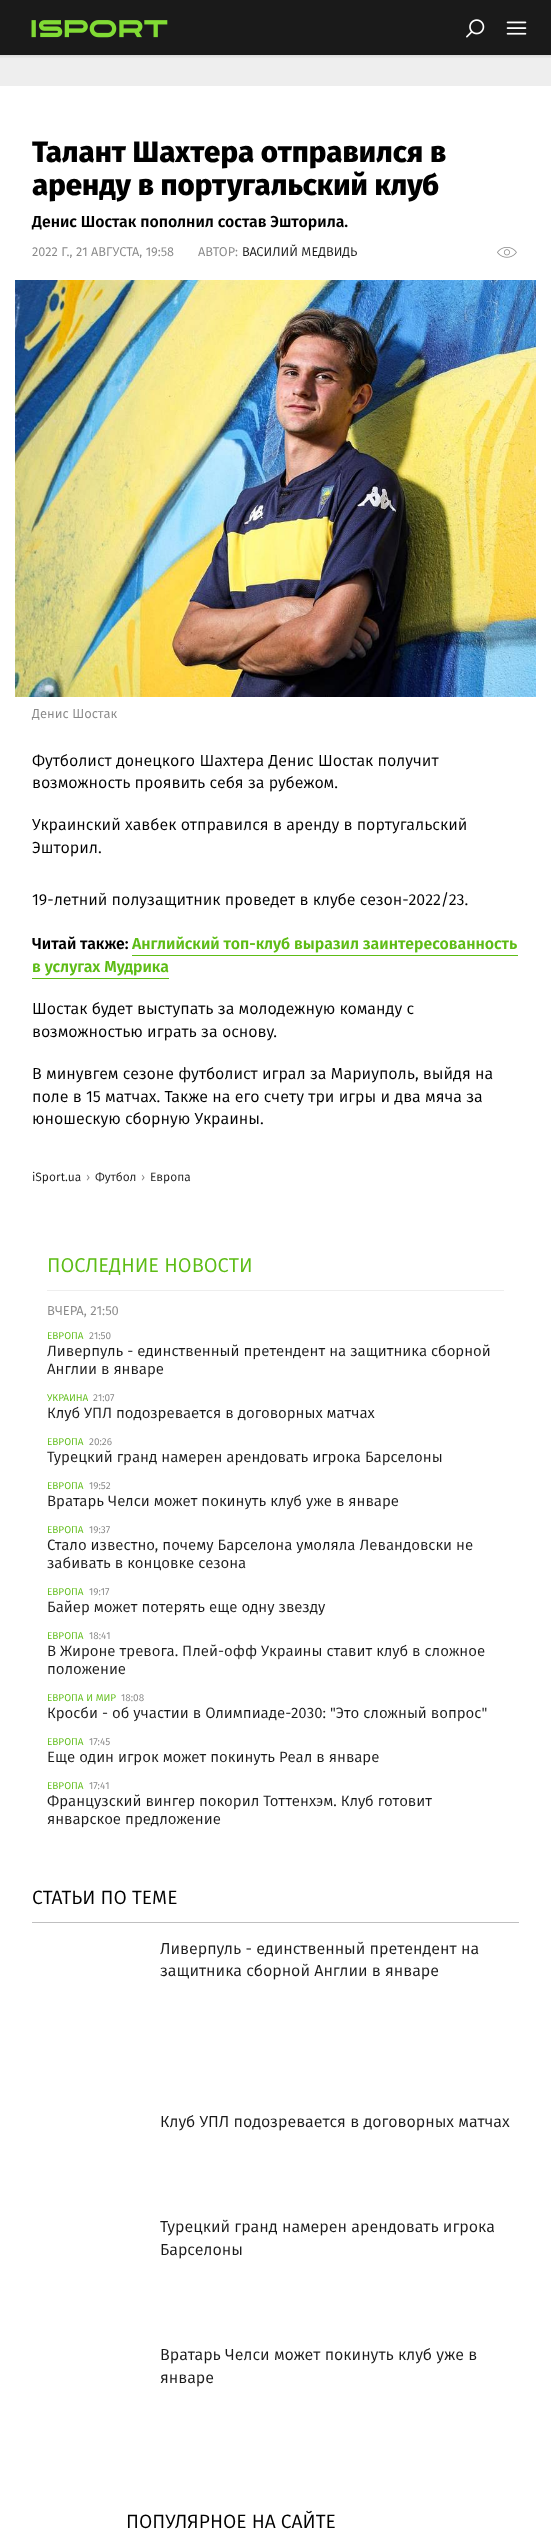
<svg xmlns="http://www.w3.org/2000/svg" width="551" height="2531">
<defs>
<linearGradient id="g1" gradientUnits="userSpaceOnUse" x1="276" y1="55" x2="276" y2="59"><stop offset="0" stop-color="#dbdbdb"/><stop offset="1" stop-color="#eee"/></linearGradient>
</defs>
<rect width="100%" height="100%" fill="#eee"/>
<rect width="551" height="55" fill="#1a1a1a"/>
<image x="31" y="20" width="137" height="18" href="media/1.png"/>
<image x="466" y="19" width="19" height="19" href="media/2.png"/>
<image x="506" y="21" width="21" height="14" href="media/3.png"/>
<rect y="55" width="551" height="3" fill="url(#g1)"/>
<rect y="86" width="551" height="2445" fill="#fff"/>
<text x="32" y="162" style="font-family:Fira Sans;font-size:30px;font-weight:800;fill:#000">Талант Шахтера отправился в</text>
<text x="32" y="195" style="font-family:Fira Sans;font-size:30px;font-weight:800;fill:#000">аренду в португальский клуб</text>
<text x="32" y="227" style="font-family:Fira Sans;font-size:16px;font-weight:600;fill:#000">Денис Шостак пополнил состав Эшторила.</text>
<text x="32" y="256" style="font-family:Fira Sans;font-size:12.75px;fill:#888" xml:space="preserve">2022 Г., 21 АВГУСТА, 19:58       АВТОР:</text>
<text x="242" y="256" style="font-family:Fira Sans;font-size:12.75px;fill:#1a1a1a">ВАСИЛИЙ МЕДВИДЬ</text>
<image x="497" y="247" width="20" height="11" href="media/4.png"/>
<image x="15" y="280" width="521" height="417" href="media/5.png"/>
<text x="32" y="718" style="font-family:Fira Sans;font-size:13px;fill:#888">Денис Шостак</text>
<text x="32" y="766" style="font-family:Fira Sans;font-size:16px;fill:#000">Футболист донецкого Шахтера Денис Шостак получит</text>
<text x="32" y="788" style="font-family:Fira Sans;font-size:16px;fill:#000">возможность проявить себя за рубежом.</text>
<text x="32" y="830" style="font-family:Fira Sans;font-size:16px;fill:#000">Украинский хавбек отправился в аренду в португальский</text>
<text x="32" y="853" style="font-family:Fira Sans;font-size:16px;fill:#000">Эшторил.</text>
<text x="32" y="905" style="font-family:Fira Sans;font-size:16px;fill:#000">19-летний полузащитник проведет в клубе сезон-2022/23.</text>
<text x="32" y="949" style="font-family:Fira Sans;font-size:16px;font-weight:600;fill:#000">Читай также:</text>
<text x="132" y="949" style="font-family:Fira Sans;font-size:16px;font-weight:600;fill:#5dbc15">Английский топ-клуб выразил заинтересованность</text>
<rect x="132" y="955" width="386" height="1" fill="#5dbc15"/>
<text x="32" y="972" style="font-family:Fira Sans;font-size:16px;font-weight:600;fill:#5dbc15">в услугах Мудрика</text>
<rect x="32" y="978" width="137" height="1" fill="#5dbc15"/>
<text x="32" y="1014" style="font-family:Fira Sans;font-size:16px;fill:#000">Шостак будет выступать за молодежную команду с</text>
<text x="32" y="1037" style="font-family:Fira Sans;font-size:16px;fill:#000">возможностью играть за основу.</text>
<text x="32" y="1079" style="font-family:Fira Sans;font-size:16px;fill:#000">В минувгем сезоне футболист играл за Мариуполь, выйдя на</text>
<text x="32" y="1102" style="font-family:Fira Sans;font-size:16px;fill:#000">поле в 15 матчах. Также на его счету три игры и два мяча за</text>
<text x="32" y="1124" style="font-family:Fira Sans;font-size:16px;fill:#000">юношескую сборную Украины.</text>
<text x="32" y="1181" style="font-family:Fira Sans;font-size:12px;fill:#1a1a1a">iSport.ua</text>
<text x="86" y="1181" style="font-family:Fira Sans;font-size:12px;fill:#888">›</text>
<text x="95" y="1181" style="font-family:Fira Sans;font-size:12px;fill:#1a1a1a">Футбол</text>
<text x="141" y="1181" style="font-family:Fira Sans;font-size:12px;fill:#888">›</text>
<text x="150" y="1181" style="font-family:Fira Sans;font-size:12px;fill:#1a1a1a">Европа</text>
<text x="47" y="1272" style="font-family:Fira Sans;font-size:20px;fill:#5dbc15">ПОСЛЕДНИЕ НОВОСТИ</text>
<rect x="47" y="1290" width="457" height="1" fill="#eee"/>
<text x="47" y="1315" style="font-family:Fira Sans;font-size:13px;fill:#888">ВЧЕРА, 21:50</text>
<text x="47" y="1339" style="font-family:Fira Sans;font-size:10px;fill:#5dbc15">ЕВРОПА</text>
<text x="89" y="1339" style="font-family:Fira Sans;font-size:10px;fill:#888">21:50</text>
<text x="47" y="1356" style="font-family:Fira Sans;font-size:15px;fill:#1a1a1a">Ливерпуль - единственный претендент на защитника сборной</text>
<text x="47" y="1374" style="font-family:Fira Sans;font-size:15px;fill:#1a1a1a">Англии в январе</text>
<text x="47" y="1401" style="font-family:Fira Sans;font-size:10px;fill:#5dbc15">УКРАИНА</text>
<text x="93" y="1401" style="font-family:Fira Sans;font-size:10px;fill:#888">21:07</text>
<text x="47" y="1418" style="font-family:Fira Sans;font-size:15px;fill:#1a1a1a">Клуб УПЛ подозревается в договорных матчах</text>
<text x="47" y="1445" style="font-family:Fira Sans;font-size:10px;fill:#5dbc15">ЕВРОПА</text>
<text x="89" y="1445" style="font-family:Fira Sans;font-size:10px;fill:#888">20:26</text>
<text x="47" y="1462" style="font-family:Fira Sans;font-size:15px;fill:#1a1a1a">Турецкий гранд намерен арендовать игрока Барселоны</text>
<text x="47" y="1489" style="font-family:Fira Sans;font-size:10px;fill:#5dbc15">ЕВРОПА</text>
<text x="89" y="1489" style="font-family:Fira Sans;font-size:10px;fill:#888">19:52</text>
<text x="47" y="1506" style="font-family:Fira Sans;font-size:15px;fill:#1a1a1a">Вратарь Челси может покинуть клуб уже в январе</text>
<text x="47" y="1533" style="font-family:Fira Sans;font-size:10px;fill:#5dbc15">ЕВРОПА</text>
<text x="89" y="1533" style="font-family:Fira Sans;font-size:10px;fill:#888">19:37</text>
<text x="47" y="1550" style="font-family:Fira Sans;font-size:15px;fill:#1a1a1a">Стало известно, почему Барселона умоляла Левандовски не</text>
<text x="47" y="1568" style="font-family:Fira Sans;font-size:15px;fill:#1a1a1a">забивать в концовке сезона</text>
<text x="47" y="1595" style="font-family:Fira Sans;font-size:10px;fill:#5dbc15">ЕВРОПА</text>
<text x="89" y="1595" style="font-family:Fira Sans;font-size:10px;fill:#888">19:17</text>
<text x="47" y="1612" style="font-family:Fira Sans;font-size:15px;fill:#1a1a1a">Байер может потерять еще одну звезду</text>
<text x="47" y="1639" style="font-family:Fira Sans;font-size:10px;fill:#5dbc15">ЕВРОПА</text>
<text x="89" y="1639" style="font-family:Fira Sans;font-size:10px;fill:#888">18:41</text>
<text x="47" y="1656" style="font-family:Fira Sans;font-size:15px;fill:#1a1a1a">В Жироне тревога. Плей-офф Украины ставит клуб в сложное</text>
<text x="47" y="1674" style="font-family:Fira Sans;font-size:15px;fill:#1a1a1a">положение</text>
<text x="47" y="1701" style="font-family:Fira Sans;font-size:10px;fill:#5dbc15">ЕВРОПА И МИР</text>
<text x="121" y="1701" style="font-family:Fira Sans;font-size:10px;fill:#888">18:08</text>
<text x="47" y="1718" style="font-family:Fira Sans;font-size:15px;fill:#1a1a1a">Кросби - об участии в Олимпиаде-2030: "Это сложный вопрос"</text>
<text x="47" y="1745" style="font-family:Fira Sans;font-size:10px;fill:#5dbc15">ЕВРОПА</text>
<text x="89" y="1745" style="font-family:Fira Sans;font-size:10px;fill:#888">17:45</text>
<text x="47" y="1762" style="font-family:Fira Sans;font-size:15px;fill:#1a1a1a">Еще один игрок может покинуть Реал в январе</text>
<text x="47" y="1789" style="font-family:Fira Sans;font-size:10px;fill:#5dbc15">ЕВРОПА</text>
<text x="89" y="1789" style="font-family:Fira Sans;font-size:10px;fill:#888">17:41</text>
<text x="47" y="1806" style="font-family:Fira Sans;font-size:15px;fill:#1a1a1a">Французский вингер покорил Тоттенхэм. Клуб готовит</text>
<text x="47" y="1824" style="font-family:Fira Sans;font-size:15px;fill:#1a1a1a">январское предложение</text>
<rect x="32" y="1922" width="487" height="1" fill="#bfbfc0"/>
<text x="32" y="1904" style="font-family:Fira Sans;font-size:19.25px;fill:#000">СТАТЬИ ПО ТЕМЕ</text>
<text x="160" y="1954" style="font-family:Fira Sans;font-size:16px;fill:#1a1a1a">Ливерпуль - единственный претендент на</text>
<text x="160" y="1976" style="font-family:Fira Sans;font-size:16px;fill:#1a1a1a">защитника сборной Англии в январе</text>
<text x="160" y="2127" style="font-family:Fira Sans;font-size:16px;fill:#1a1a1a">Клуб УПЛ подозревается в договорных матчах</text>
<text x="160" y="2232" style="font-family:Fira Sans;font-size:16px;fill:#1a1a1a">Турецкий гранд намерен арендовать игрока</text>
<text x="160" y="2255" style="font-family:Fira Sans;font-size:16px;fill:#1a1a1a">Барселоны</text>
<text x="160" y="2360" style="font-family:Fira Sans;font-size:16px;fill:#1a1a1a">Вратарь Челси может покинуть клуб уже в</text>
<text x="160" y="2383" style="font-family:Fira Sans;font-size:16px;fill:#1a1a1a">январе</text>
<text x="126" y="2528" style="font-family:Fira Sans;font-size:19.25px;fill:#000">ПОПУЛЯРНОЕ НА САЙТЕ</text>
</svg>
